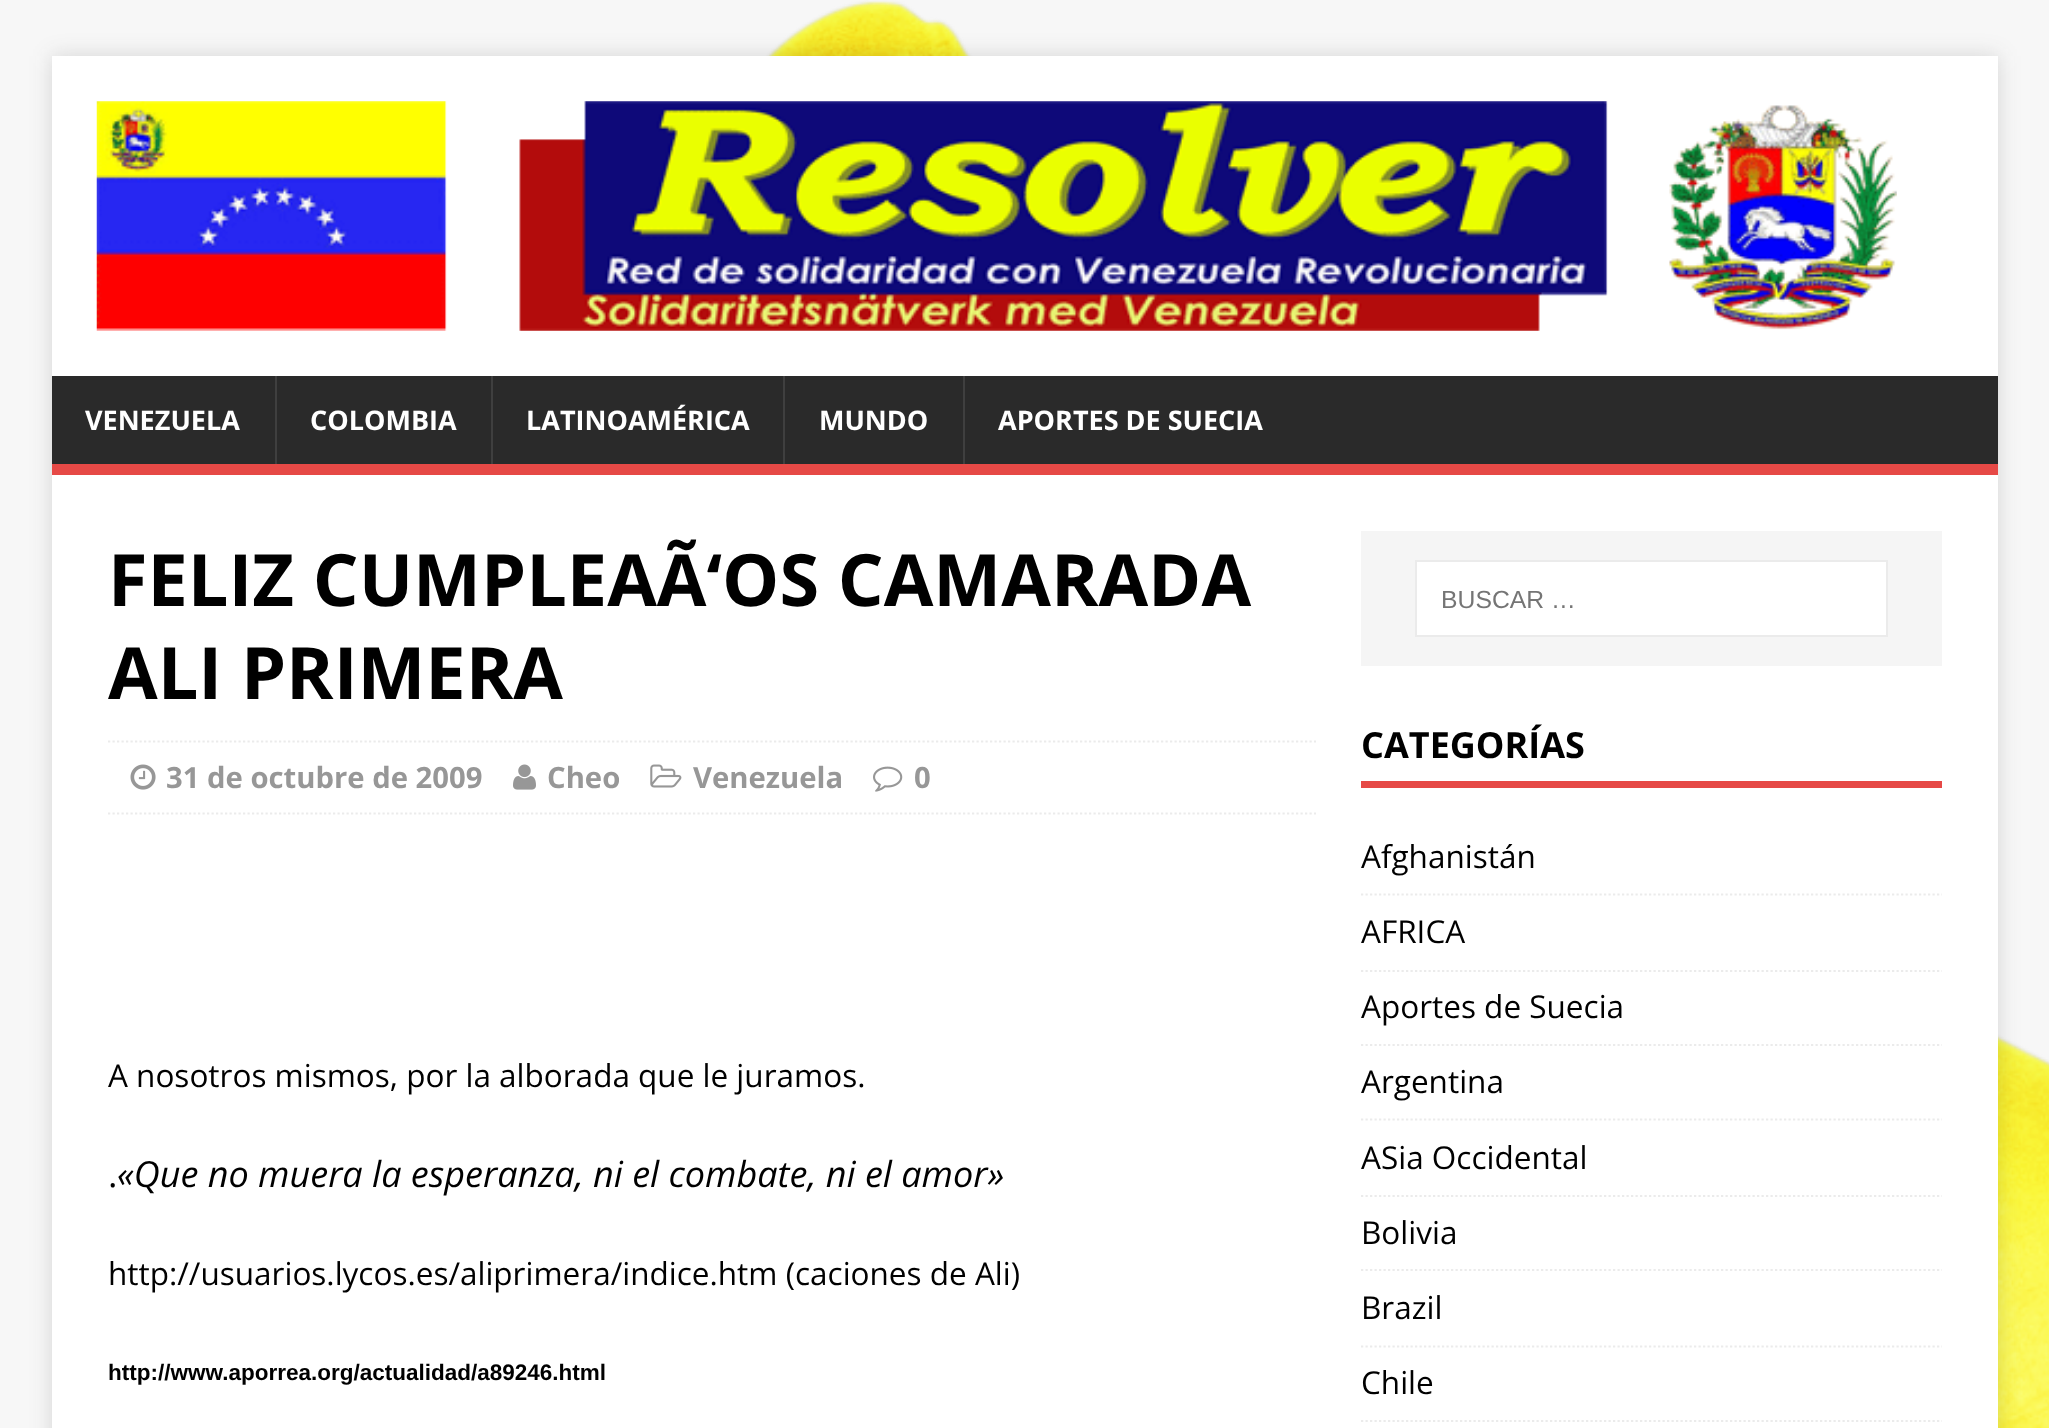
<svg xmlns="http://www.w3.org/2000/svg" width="2049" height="1428">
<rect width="100%" height="100%" fill="#f7f7f7"/>
<image x="765" y="0" width="1284" height="1428" href="media/1.png"/>
<rect x="52" y="56" width="1946" height="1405" fill="#3232322b" filter="blur(11px)"/>
<rect x="52" y="56" width="1946" height="320" fill="#fff"/>
<image x="96" y="101" width="1801" height="230" href="media/2.png"/>
<rect x="52" y="376" width="1946" height="88" fill="#2a2a2a"/>
<rect x="52" y="464" width="1946" height="11" fill="#e64946"/>
<text x="85" y="430" style="font-family:Open Sans;font-size:27px;font-weight:bold;fill:#fff">VENEZUELA</text>
<rect x="275" y="376" width="2" height="88" fill="#3f3f3f"/>
<text x="310" y="430" style="font-family:Open Sans;font-size:27px;font-weight:bold;fill:#fff">COLOMBIA</text>
<rect x="491" y="376" width="2" height="88" fill="#3f3f3f"/>
<text x="526" y="430" style="font-family:Open Sans;font-size:27px;font-weight:bold;fill:#fff">LATINOAMÉRICA</text>
<rect x="783" y="376" width="2" height="88" fill="#3f3f3f"/>
<text x="819" y="430" style="font-family:Open Sans;font-size:27px;font-weight:bold;fill:#fff">MUNDO</text>
<rect x="963" y="376" width="2" height="88" fill="#3f3f3f"/>
<text x="998" y="430" style="font-family:Open Sans;font-size:27px;font-weight:bold;fill:#fff">APORTES DE SUECIA</text>
<rect x="52" y="475" width="1946" height="953" fill="#fff"/>
<text x="108" y="606" style="font-family:Open Sans;font-size:72px;font-weight:bold;fill:#000">FELIZ CUMPLEAÃ‘OS CAMARADA</text>
<text x="108" y="699" style="font-family:Open Sans;font-size:72px;font-weight:bold;fill:#000">ALI PRIMERA</text>
<path d="M108 741.5h1208" fill="none" stroke="#ebebeb" stroke-width="2.2" stroke-dasharray="2.25 2.25"/>
<path d="M108 813.5h1208" fill="none" stroke="#ebebeb" stroke-width="2.2" stroke-dasharray="2.25 2.25"/>
<image x="130" y="764" width="26" height="26" href="media/3.png"/>
<text x="166" y="788" style="font-family:Open Sans;font-size:29.25px;font-weight:bold;fill:#979797">31 de octubre de 2009</text>
<image x="513" y="764" width="23" height="26" href="media/4.png"/>
<text x="547" y="788" style="font-family:Open Sans;font-size:29.25px;font-weight:bold;fill:#979797">Cheo</text>
<image x="650" y="764" width="32" height="24" href="media/5.png"/>
<text x="693" y="788" style="font-family:Open Sans;font-size:29.25px;font-weight:bold;fill:#979797">Venezuela</text>
<image x="873" y="766" width="30" height="26" href="media/6.png"/>
<text x="914" y="788" style="font-family:Open Sans;font-size:29.25px;font-weight:bold;fill:#979797">0</text>
<text x="108" y="1087" style="font-family:Open Sans;font-size:31.5px;fill:#000">A nosotros mismos, por la alborada que le juramos.</text>
<text x="108" y="1187" style="font-family:Open Sans;font-size:36px;fill:#000">.</text>
<text x="117" y="1187" style="font-family:Open Sans;font-size:36px;font-style:italic;fill:#000">«Que no muera la esperanza, ni el combate, ni el amor»</text>
<text x="108" y="1285" style="font-family:Open Sans;font-size:31.5px;fill:#000">http://usuarios.lycos.es/aliprimera/indice.htm (caciones de Ali)</text>
<text x="108" y="1380" style="font-family:Liberation Sans;font-size:22.5px;font-weight:bold;fill:#000">http://www.aporrea.org/actualidad/a89246.html</text>
<rect x="1361" y="531" width="581" height="135" fill="#f5f5f5"/>
<rect x="1416" y="561" width="471" height="75" fill="#fff" stroke="#ebebeb" stroke-width="2"/>
<text x="1441" y="608" style="font-family:Liberation Sans;font-size:24.75px;fill:#757575">BUSCAR …</text>
<rect x="1361" y="781" width="581" height="7" fill="#e64946"/>
<text x="1361" y="758" style="font-family:Open Sans;font-size:36px;font-weight:bold;fill:#000">CATEGORÍAS</text>
<path d="M1361 894.5h581" fill="none" stroke="#ebebeb" stroke-width="2.2" stroke-dasharray="2.25 2.25"/>
<text x="1361" y="868" style="font-family:Open Sans;font-size:31.5px;fill:#000">Afghanistán</text>
<path d="M1361 971h581" fill="none" stroke="#ebebeb" stroke-width="2.2" stroke-dasharray="2.25 2.25"/>
<text x="1361" y="943" style="font-family:Open Sans;font-size:31.5px;fill:#000">AFRICA</text>
<path d="M1361 1045h581" fill="none" stroke="#ebebeb" stroke-width="2.2" stroke-dasharray="2.25 2.25"/>
<text x="1361" y="1018" style="font-family:Open Sans;font-size:31.5px;fill:#000">Aportes de Suecia</text>
<path d="M1361 1119.5h581" fill="none" stroke="#ebebeb" stroke-width="2.2" stroke-dasharray="2.25 2.25"/>
<text x="1361" y="1093" style="font-family:Open Sans;font-size:31.5px;fill:#000">Argentina</text>
<path d="M1361 1196h581" fill="none" stroke="#ebebeb" stroke-width="2.2" stroke-dasharray="2.25 2.25"/>
<text x="1361" y="1169" style="font-family:Open Sans;font-size:31.5px;fill:#000">ASia Occidental</text>
<path d="M1361 1270h581" fill="none" stroke="#ebebeb" stroke-width="2.2" stroke-dasharray="2.25 2.25"/>
<text x="1361" y="1244" style="font-family:Open Sans;font-size:31.5px;fill:#000">Bolivia</text>
<path d="M1361 1346.5h581" fill="none" stroke="#ebebeb" stroke-width="2.2" stroke-dasharray="2.25 2.25"/>
<text x="1361" y="1319" style="font-family:Open Sans;font-size:31.5px;fill:#000">Brazil</text>
<path d="M1361 1421h581" fill="none" stroke="#ebebeb" stroke-width="2.2" stroke-dasharray="2.25 2.25"/>
<text x="1361" y="1394" style="font-family:Open Sans;font-size:31.5px;fill:#000">Chile</text>
</svg>
